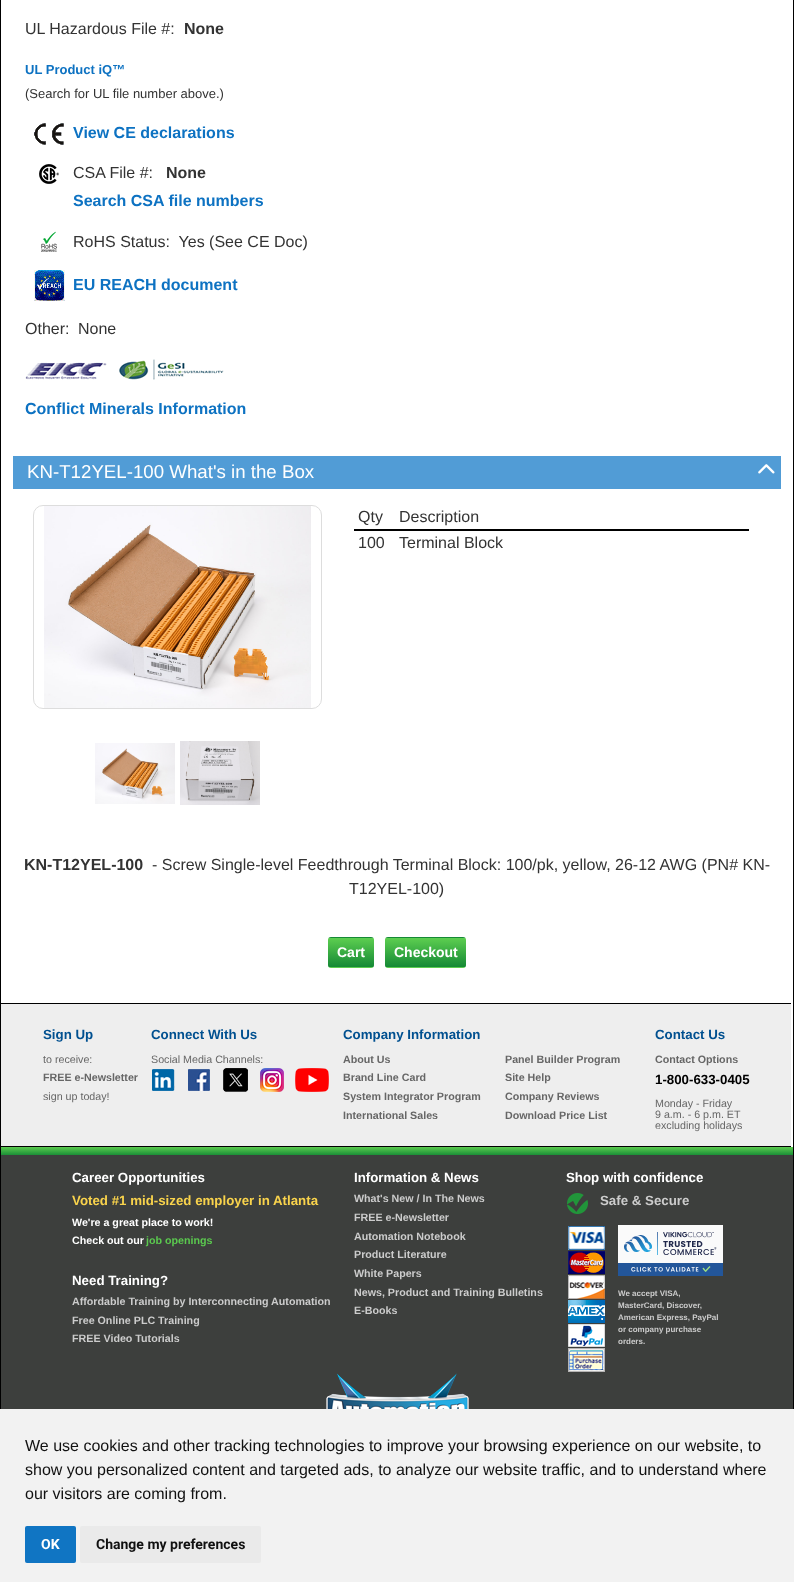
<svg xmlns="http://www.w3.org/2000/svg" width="794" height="1582">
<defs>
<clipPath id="clip1"><rect x="328" y="937" width="46" height="31" rx="3"/></clipPath>
<linearGradient id="g1" gradientUnits="userSpaceOnUse" x1="351" y1="909" x2="351" y2="938"><stop offset="0" stop-color="#5dce50"/><stop offset="1" stop-color="#148935"/></linearGradient>
<linearGradient id="g2" gradientUnits="userSpaceOnUse" x1="351" y1="938" x2="351" y2="967"><stop offset="0" stop-color="#5dce50"/><stop offset="1" stop-color="#148935"/></linearGradient>
<linearGradient id="g3" gradientUnits="userSpaceOnUse" x1="351" y1="967" x2="351" y2="996"><stop offset="0" stop-color="#5dce50"/><stop offset="1" stop-color="#148935"/></linearGradient>
<clipPath id="clip2"><rect x="385" y="937" width="81" height="31" rx="3"/></clipPath>
<linearGradient id="g4" gradientUnits="userSpaceOnUse" x1="426" y1="909" x2="426" y2="938"><stop offset="0" stop-color="#5dce50"/><stop offset="1" stop-color="#148935"/></linearGradient>
<linearGradient id="g5" gradientUnits="userSpaceOnUse" x1="426" y1="938" x2="426" y2="967"><stop offset="0" stop-color="#5dce50"/><stop offset="1" stop-color="#148935"/></linearGradient>
<linearGradient id="g6" gradientUnits="userSpaceOnUse" x1="426" y1="967" x2="426" y2="996"><stop offset="0" stop-color="#5dce50"/><stop offset="1" stop-color="#148935"/></linearGradient>
<linearGradient id="g7" gradientUnits="userSpaceOnUse" x1="397" y1="1147" x2="397" y2="1155"><stop offset="0" stop-color="#5bca4f"/><stop offset="1" stop-color="#1b8f37"/></linearGradient>
</defs>
<rect width="100%" height="100%" fill="#fff"/>
<rect x="793" width="1" height="1409" fill="#000"/>
<rect width="1" height="1409" fill="#000"/>
<text x="25" y="34" style="font-family:Liberation Sans;font-size:16px;fill:#333">UL Hazardous File #:</text>
<text x="184" y="34" style="font-family:Liberation Sans;font-size:16px;font-weight:bold;fill:#333">None</text>
<text x="25" y="74" style="font-family:Liberation Sans;font-size:13px;font-weight:bold;fill:#0d72c2">UL Product iQ™</text>
<text x="25" y="98" style="font-family:Liberation Sans;font-size:13px;fill:#333">(Search for UL file number above.)</text>
<image x="34" y="123" width="30" height="22" href="media/1.png"/>
<text x="73" y="138" style="font-family:Liberation Sans;font-size:16px;font-weight:bold;fill:#0d72c2">View CE declarations</text>
<image x="39" y="164" width="20" height="20" href="media/2.png"/>
<text x="73" y="178" style="font-family:Liberation Sans;font-size:16px;fill:#333">CSA File #:</text>
<text x="166" y="178" style="font-family:Liberation Sans;font-size:16px;font-weight:bold;fill:#333">None</text>
<text x="73" y="206" style="font-family:Liberation Sans;font-size:16px;font-weight:bold;fill:#0d72c2">Search CSA file numbers</text>
<image x="41" y="231" width="16" height="21" href="media/3.png"/>
<text x="73" y="247" style="font-family:Liberation Sans;font-size:16px;fill:#333" xml:space="preserve">RoHS Status:  Yes (See CE Doc)</text>
<image x="34" y="270" width="31" height="31" href="media/4.png"/>
<text x="73" y="290" style="font-family:Liberation Sans;font-size:16px;font-weight:bold;fill:#0d72c2">EU REACH document</text>
<text x="25" y="334" style="font-family:Liberation Sans;font-size:16px;fill:#333">Other:</text>
<text x="78" y="334" style="font-family:Liberation Sans;font-size:16px;fill:#333">None</text>
<image x="25" y="359" width="199" height="21" href="media/5.png"/>
<text x="25" y="414" style="font-family:Liberation Sans;font-size:16px;font-weight:bold;fill:#0d72c2">Conflict Minerals Information</text>
<rect x="13" y="456" width="768" height="33" fill="#519cd6"/>
<text x="27" y="478" style="font-family:Liberation Sans;font-size:18.7px;fill:#fff">KN-T12YEL-100 What's in the Box</text>
<image x="758" y="464" width="17" height="10" href="media/6.png"/>
<rect x="33.5" y="505.5" width="288" height="203" rx="9.5" fill="none" stroke="#ddd"/>
<image x="44" y="506" width="267" height="202" href="media/7.png"/>
<image x="95" y="743" width="80" height="61" href="media/8.png"/>
<image x="180" y="741" width="80" height="64" href="media/9.png"/>
<rect x="354" y="529" width="395" height="2" fill="#000"/>
<text x="358" y="522" style="font-family:Liberation Sans;font-size:16px;fill:#333">Qty</text>
<text x="399" y="522" style="font-family:Liberation Sans;font-size:16px;fill:#333">Description</text>
<text x="358" y="548" style="font-family:Liberation Sans;font-size:16px;fill:#333">100</text>
<text x="399" y="548" style="font-family:Liberation Sans;font-size:16px;fill:#333">Terminal Block</text>
<text x="24" y="870" style="font-family:Liberation Sans;font-size:16px;font-weight:bold;fill:#333">KN-T12YEL-100</text>
<text x="152" y="870" style="font-family:Liberation Sans;font-size:16px;fill:#333">- Screw Single-level Feedthrough Terminal Block: 100/pk, yellow, 26-12 AWG (PN# KN-</text>
<text x="349" y="894" style="font-family:Liberation Sans;font-size:16px;fill:#333">T12YEL-100)</text>
<g clip-path="url(#clip1)">
<rect x="328" y="937" width="46" height="1" fill="url(#g1)"/>
<rect x="328" y="938" width="46" height="29" fill="url(#g2)"/>
<rect x="328" y="967" width="46" height="1" fill="url(#g3)"/>
</g>
<text x="337" y="957" style="font-family:Liberation Sans;font-size:14px;font-weight:bold;fill:#fff">Cart</text>
<g clip-path="url(#clip2)">
<rect x="385" y="937" width="81" height="1" fill="url(#g4)"/>
<rect x="385" y="938" width="81" height="29" fill="url(#g5)"/>
<rect x="385" y="967" width="81" height="1" fill="url(#g6)"/>
</g>
<text x="394" y="957" style="font-family:Liberation Sans;font-size:14px;font-weight:bold;fill:#fff">Checkout</text>
<rect x="1" y="1004" width="790" height="142" fill="#eee"/>
<rect x="1" y="1003" width="790" height="1" fill="#000"/>
<rect x="1" y="1146" width="790" height="1" fill="#000"/>
<text x="43" y="1039" style="font-family:Liberation Sans;font-size:13.3px;font-weight:bold;fill:#005090">Sign Up</text>
<text x="43" y="1063" style="font-family:Liberation Sans;font-size:10.7px;fill:#666">to receive:</text>
<text x="43" y="1081" style="font-family:Liberation Sans;font-size:10.7px;font-weight:bold;fill:#666">FREE e-Newsletter</text>
<text x="43" y="1100" style="font-family:Liberation Sans;font-size:10.7px;fill:#666">sign up today!</text>
<text x="151" y="1039" style="font-family:Liberation Sans;font-size:13.3px;font-weight:bold;fill:#005090">Connect With Us</text>
<text x="151" y="1063" style="font-family:Liberation Sans;font-size:10.7px;fill:#666">Social Media Channels:</text>
<image x="152" y="1069" width="23" height="22" href="media/10.png"/>
<image x="188" y="1069" width="22" height="22" href="media/11.png"/>
<image x="223" y="1068" width="25" height="24" href="media/12.png"/>
<image x="260" y="1068" width="24" height="24" href="media/13.png"/>
<image x="295" y="1068" width="34" height="24" href="media/14.png"/>
<text x="343" y="1039" style="font-family:Liberation Sans;font-size:13.3px;font-weight:bold;fill:#005090">Company Information</text>
<text x="343" y="1063" style="font-family:Liberation Sans;font-size:10.7px;font-weight:bold;fill:#666">About Us</text>
<text x="343" y="1081" style="font-family:Liberation Sans;font-size:10.7px;font-weight:bold;fill:#666">Brand Line Card</text>
<text x="343" y="1100" style="font-family:Liberation Sans;font-size:10.7px;font-weight:bold;fill:#666">System Integrator Program</text>
<text x="343" y="1119" style="font-family:Liberation Sans;font-size:10.7px;font-weight:bold;fill:#666">International Sales</text>
<text x="505" y="1063" style="font-family:Liberation Sans;font-size:10.7px;font-weight:bold;fill:#666">Panel Builder Program</text>
<text x="505" y="1081" style="font-family:Liberation Sans;font-size:10.7px;font-weight:bold;fill:#666">Site Help</text>
<text x="505" y="1100" style="font-family:Liberation Sans;font-size:10.7px;font-weight:bold;fill:#666">Company Reviews</text>
<text x="505" y="1119" style="font-family:Liberation Sans;font-size:10.7px;font-weight:bold;fill:#666">Download Price List</text>
<text x="655" y="1039" style="font-family:Liberation Sans;font-size:13.3px;font-weight:bold;fill:#005090">Contact Us</text>
<text x="655" y="1063" style="font-family:Liberation Sans;font-size:10.7px;font-weight:bold;fill:#666">Contact Options</text>
<text x="655" y="1084" style="font-family:Liberation Sans;font-size:13.3px;font-weight:bold;fill:#000">1-800-633-0405</text>
<text x="655" y="1107" style="font-family:Liberation Sans;font-size:10.7px;fill:#666">Monday - Friday</text>
<text x="655" y="1118" style="font-family:Liberation Sans;font-size:10.7px;fill:#666">9 a.m. - 6 p.m. ET</text>
<text x="655" y="1129" style="font-family:Liberation Sans;font-size:10.7px;fill:#666">excluding holidays</text>
<rect x="1" y="1147" width="792" height="8" fill="url(#g7)"/>
<rect x="1" y="1155" width="792" height="254" fill="#3d3f3d"/>
<text x="72" y="1182" style="font-family:Liberation Sans;font-size:13.3px;font-weight:bold;fill:#fff">Career Opportunities</text>
<text x="72" y="1205" style="font-family:Liberation Sans;font-size:13.3px;font-weight:bold;fill:#f9d34c">Voted #1 mid-sized employer in Atlanta</text>
<text x="72" y="1226" style="font-family:Liberation Sans;font-size:10.7px;font-weight:bold;fill:#fff">We're a great place to work!</text>
<text x="72" y="1244" style="font-family:Liberation Sans;font-size:10.7px;font-weight:bold;fill:#fff">Check out our</text>
<text x="146" y="1244" style="font-family:Liberation Sans;font-size:10.7px;font-weight:bold;fill:#5bca4f">job openings</text>
<text x="72" y="1285" style="font-family:Liberation Sans;font-size:13.3px;font-weight:bold;fill:#fff">Need Training?</text>
<text x="72" y="1305" style="font-family:Liberation Sans;font-size:10.7px;font-weight:bold;fill:#ccc">Affordable Training by Interconnecting Automation</text>
<text x="72" y="1324" style="font-family:Liberation Sans;font-size:10.7px;font-weight:bold;fill:#ccc">Free Online PLC Training</text>
<text x="72" y="1342" style="font-family:Liberation Sans;font-size:10.7px;font-weight:bold;fill:#ccc">FREE Video Tutorials</text>
<text x="354" y="1182" style="font-family:Liberation Sans;font-size:13.3px;font-weight:bold;fill:#fff">Information &amp; News</text>
<text x="354" y="1202" style="font-family:Liberation Sans;font-size:10.7px;font-weight:bold;fill:#ccc">What's New / In The News</text>
<text x="354" y="1221" style="font-family:Liberation Sans;font-size:10.7px;font-weight:bold;fill:#ccc">FREE e-Newsletter</text>
<text x="354" y="1240" style="font-family:Liberation Sans;font-size:10.7px;font-weight:bold;fill:#ccc">Automation Notebook</text>
<text x="354" y="1258" style="font-family:Liberation Sans;font-size:10.7px;font-weight:bold;fill:#ccc">Product Literature</text>
<text x="354" y="1277" style="font-family:Liberation Sans;font-size:10.7px;font-weight:bold;fill:#ccc">White Papers</text>
<text x="354" y="1296" style="font-family:Liberation Sans;font-size:10.7px;font-weight:bold;fill:#ccc">News, Product and Training Bulletins</text>
<text x="354" y="1314" style="font-family:Liberation Sans;font-size:10.7px;font-weight:bold;fill:#ccc">E-Books</text>
<text x="566" y="1182" style="font-family:Liberation Sans;font-size:13.3px;font-weight:bold;fill:#fff">Shop with confidence</text>
<image x="567" y="1193" width="21" height="21" href="media/15.png"/>
<text x="600" y="1205" style="font-family:Liberation Sans;font-size:13.3px;font-weight:bold;fill:#ccc">Safe &amp; Secure</text>
<image x="568" y="1226" width="37" height="146" href="media/16.png"/>
<image x="618" y="1225" width="105" height="51" href="media/17.png"/>
<text x="618" y="1296" style="font-family:Liberation Sans;font-size:8px;font-weight:bold;fill:#ccc">We accept VISA,</text>
<text x="618" y="1308" style="font-family:Liberation Sans;font-size:8px;font-weight:bold;fill:#ccc">MasterCard, Discover,</text>
<text x="618" y="1320" style="font-family:Liberation Sans;font-size:8px;font-weight:bold;fill:#ccc">American Express, PayPal</text>
<text x="618" y="1332" style="font-family:Liberation Sans;font-size:8px;font-weight:bold;fill:#ccc">or company purchase</text>
<text x="618" y="1344" style="font-family:Liberation Sans;font-size:8px;font-weight:bold;fill:#ccc">orders.</text>
<image x="326" y="1373" width="143" height="36" href="media/18.png"/>
<rect y="1409" width="794" height="173" fill="#f2f2f2"/>
<text x="25" y="1451" style="font-family:Liberation Sans;font-size:16px;fill:#111">We use cookies and other tracking technologies to improve your browsing experience on our website, to</text>
<text x="25" y="1475" style="font-family:Liberation Sans;font-size:16px;fill:#111">show you personalized content and targeted ads, to analyze our website traffic, and to understand where</text>
<text x="25" y="1499" style="font-family:Liberation Sans;font-size:16px;fill:#111">our visitors are coming from.</text>
<rect x="25" y="1526" width="51" height="37" rx="2" fill="#1075c3"/>
<text x="41" y="1549" style="font-family:Roboto;font-size:14px;font-weight:bold;fill:#fff">OK</text>
<rect x="80" y="1526" width="181" height="37" rx="2" fill="#eaeaea"/>
<text x="96" y="1549" style="font-family:Roboto;font-size:14px;font-weight:bold;fill:#111">Change my preferences</text>
</svg>
